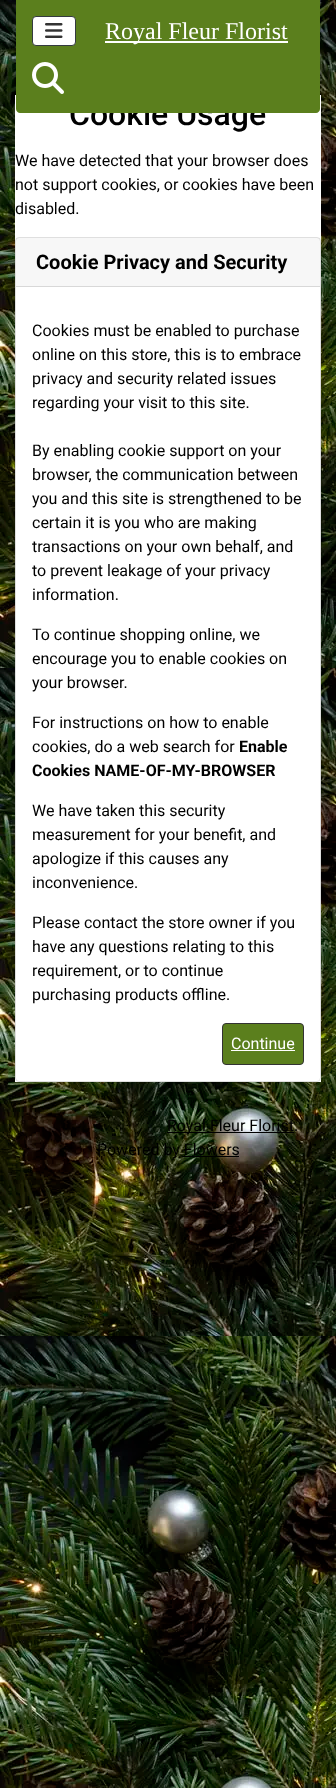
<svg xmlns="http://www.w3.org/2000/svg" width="336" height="1788">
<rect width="100%" height="100%" fill="#fff"/>
<image x="0" y="0" width="336" height="1788" href="media/1.png"/>
<rect x="15" y="95" width="306" height="987" fill="#fff"/>
<text x="69" y="125" style="font-family:Roboto;font-size:32px;font-weight:500;fill:#000">Cookie Usage</text>
<path d="M16 0h304v109c0 2-2 4-4 4h-296c-2 0-4-2-4-4z" fill="#5b7f1d"/>
<rect x="32.5" y="16.5" width="43" height="29" rx="3.5" fill="#fff" stroke="#343a40"/>
<image x="45" y="23" width="18" height="15" href="media/2.png"/>
<rect x="105" y="41" width="183" height="2" fill="#fff"/>
<text x="105" y="39" style="font-family:Liberation Serif;font-size:24px;fill:#fff">Royal Fleur Florist</text>
<image x="32" y="62" width="32" height="32" href="media/3.png"/>
<text x="15" y="166" style="font-family:Roboto;font-size:16px;fill:#000">We have detected that your browser does</text>
<text x="15" y="190" style="font-family:Roboto;font-size:16px;fill:#000">not support cookies, or cookies have been</text>
<text x="15" y="214" style="font-family:Roboto;font-size:16px;fill:#000">disabled.</text>
<rect x="15.5" y="237.5" width="305" height="844" rx="3.5" fill="none" stroke="#dfdfdf"/>
<rect x="16" y="238" width="304" height="48" fill="#00000008"/>
<rect x="16" y="286" width="304" height="1" fill="#d8d8d8"/>
<text x="36" y="269" style="font-family:Roboto;font-size:20px;font-weight:bold;fill:#000">Cookie Privacy and Security</text>
<text x="32" y="336" style="font-family:Roboto;font-size:16px;fill:#000">Cookies must be enabled to purchase</text>
<text x="32" y="360" style="font-family:Roboto;font-size:16px;fill:#000">online on this store, this is to embrace</text>
<text x="32" y="384" style="font-family:Roboto;font-size:16px;fill:#000">privacy and security related issues</text>
<text x="32" y="408" style="font-family:Roboto;font-size:16px;fill:#000">regarding your visit to this site.</text>
<text x="32" y="456" style="font-family:Roboto;font-size:16px;fill:#000">By enabling cookie support on your</text>
<text x="32" y="480" style="font-family:Roboto;font-size:16px;fill:#000">browser, the communication between</text>
<text x="32" y="504" style="font-family:Roboto;font-size:16px;fill:#000">you and this site is strengthened to be</text>
<text x="32" y="528" style="font-family:Roboto;font-size:16px;fill:#000">certain it is you who are making</text>
<text x="32" y="552" style="font-family:Roboto;font-size:16px;fill:#000">transactions on your own behalf, and</text>
<text x="32" y="576" style="font-family:Roboto;font-size:16px;fill:#000">to prevent leakage of your privacy</text>
<text x="32" y="600" style="font-family:Roboto;font-size:16px;fill:#000">information.</text>
<text x="32" y="640" style="font-family:Roboto;font-size:16px;fill:#000">To continue shopping online, we</text>
<text x="32" y="664" style="font-family:Roboto;font-size:16px;fill:#000">encourage you to enable cookies on</text>
<text x="32" y="688" style="font-family:Roboto;font-size:16px;fill:#000">your browser.</text>
<text x="32" y="728" style="font-family:Roboto;font-size:16px;fill:#000">For instructions on how to enable</text>
<text x="32" y="752" style="font-family:Roboto;font-size:16px;fill:#000">cookies, do a web search for</text>
<text x="239" y="752" style="font-family:Roboto;font-size:16px;font-weight:bold;fill:#000">Enable</text>
<text x="32" y="776" style="font-family:Roboto;font-size:16px;font-weight:bold;fill:#000">Cookies NAME-OF-MY-BROWSER</text>
<text x="32" y="816" style="font-family:Roboto;font-size:16px;fill:#000">We have taken this security</text>
<text x="32" y="840" style="font-family:Roboto;font-size:16px;fill:#000">measurement for your benefit, and</text>
<text x="32" y="864" style="font-family:Roboto;font-size:16px;fill:#000">apologize if this causes any</text>
<text x="32" y="888" style="font-family:Roboto;font-size:16px;fill:#000">inconvenience.</text>
<text x="32" y="928" style="font-family:Roboto;font-size:16px;fill:#000">Please contact the store owner if you</text>
<text x="32" y="952" style="font-family:Roboto;font-size:16px;fill:#000">have any questions relating to this</text>
<text x="32" y="976" style="font-family:Roboto;font-size:16px;fill:#000">requirement, or to continue</text>
<text x="32" y="1000" style="font-family:Roboto;font-size:16px;fill:#000">purchasing products offline.</text>
<rect x="222.5" y="1023.5" width="81" height="41" rx="3.5" fill="#5b7f1d" stroke="#333"/>
<text x="231" y="1049" style="font-family:Roboto;font-size:16px;fill:#fff">Continue</text>
<rect x="231" y="1050" width="64" height="1" fill="#fff"/>
<rect x="167" y="1132" width="127" height="1" fill="#000"/>
<text x="167" y="1131" style="font-family:Roboto;font-size:16px;fill:#000">Royal Fleur Florist.</text>
<text x="97" y="1155" style="font-family:Roboto;font-size:16px;fill:#000">Powered by Flowers</text>
<rect x="183" y="1156" width="56" height="1" fill="#000"/>
</svg>
